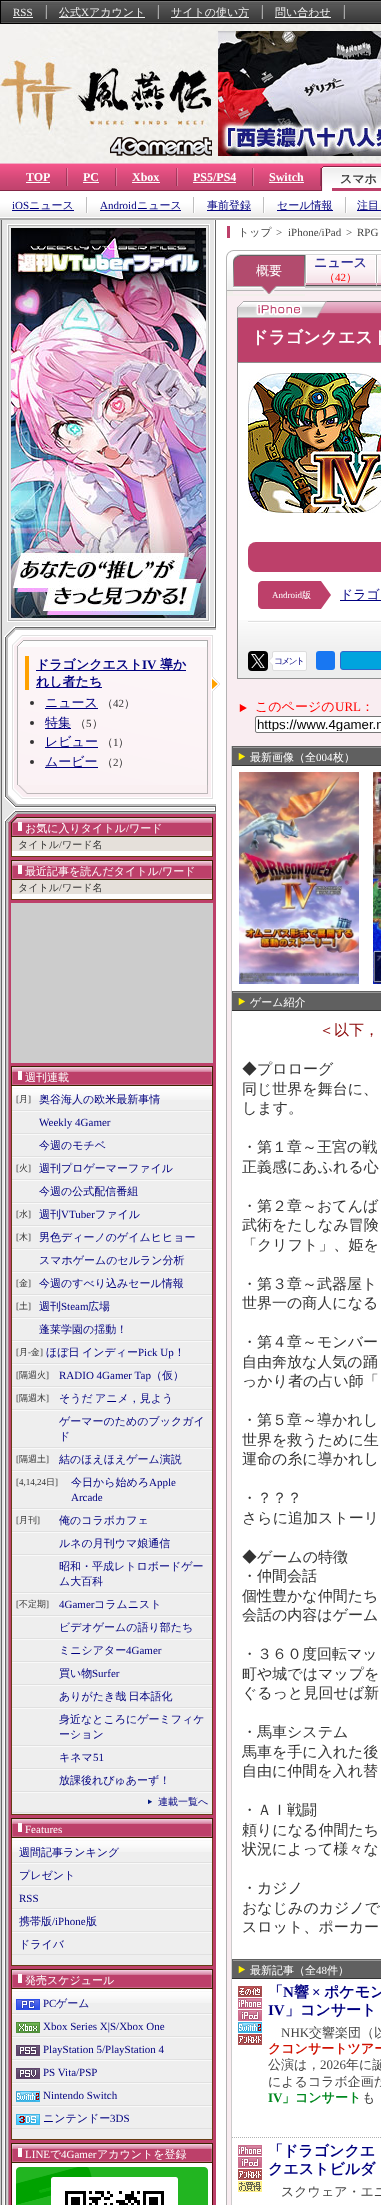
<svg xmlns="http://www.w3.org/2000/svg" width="381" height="2205">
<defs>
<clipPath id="clip1"><rect x="257" y="718" width="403" height="13"/></clipPath>
</defs>
<rect width="100%" height="100%" fill="#fff"/>
<image x="0" y="220" width="216" height="1985" href="media/1.png"/>
<image x="0" y="0" width="381" height="163" href="media/2.png"/>
<image x="110" y="137" width="102" height="19" href="media/3.png"/>
<image x="218" y="31" width="163" height="125" href="media/4.png"/>
<image x="1" y="0" width="7" height="24" href="media/5.png"/>
<rect width="1" height="24" fill="#000"/>
<rect x="46" y="5" width="1" height="14" fill="#a7a7a7"/>
<rect x="45" y="5" width="1" height="14" fill="#5d5d5d"/>
<text x="13" y="16" style="font-family:Liberation Serif;font-size:11px;fill:#f0f0f0">RSS</text>
<rect x="13" y="17" width="20" height="1" fill="#f0f0f0"/>
<rect x="158" y="5" width="1" height="14" fill="#a7a7a7"/>
<rect x="157" y="5" width="1" height="14" fill="#5d5d5d"/>
<rect x="59" y="17" width="86" height="1" fill="#f0f0f0"/>
<text x="59" y="16" style="font-family:WenQuanYi Zen Hei;font-size:11px;font-weight:500;fill:#f0f0f0">公式</text>
<text x="81" y="16" style="font-family:Liberation Serif;font-size:11px;fill:#f0f0f0">X</text>
<text x="89" y="16" style="font-family:WenQuanYi Zen Hei;font-size:11px;font-weight:500;fill:#f0f0f0">アカウント</text>
<rect x="262" y="5" width="1" height="14" fill="#a7a7a7"/>
<rect x="261" y="5" width="1" height="14" fill="#5d5d5d"/>
<rect x="171" y="17" width="78" height="1" fill="#f0f0f0"/>
<text x="171" y="16" style="font-family:WenQuanYi Zen Hei;font-size:11px;font-weight:500;fill:#f0f0f0">サイトの使い方</text>
<rect x="344" y="5" width="1" height="14" fill="#a7a7a7"/>
<rect x="343" y="5" width="1" height="14" fill="#5d5d5d"/>
<rect x="275" y="17" width="56" height="1" fill="#f0f0f0"/>
<text x="275" y="16" style="font-family:WenQuanYi Zen Hei;font-size:11px;font-weight:500;fill:#f0f0f0">問い合わせ</text>
<image x="0" y="163" width="381" height="57" href="media/6.png"/>
<rect x="67" y="168" width="1" height="18" fill="#ffffff40"/>
<rect x="66" y="168" width="1" height="18" fill="#00000040"/>
<text x="26" y="181" style="font-family:Liberation Serif;font-size:12px;font-weight:bold;fill:#fff">TOP</text>
<rect x="26" y="182" width="24" height="1" fill="#fff"/>
<rect x="116" y="168" width="1" height="18" fill="#ffffff40"/>
<rect x="115" y="168" width="1" height="18" fill="#00000040"/>
<text x="83" y="181" style="font-family:Liberation Serif;font-size:12px;font-weight:bold;fill:#fff">PC</text>
<rect x="83" y="182" width="16" height="1" fill="#fff"/>
<rect x="177" y="168" width="1" height="18" fill="#ffffff40"/>
<rect x="176" y="168" width="1" height="18" fill="#00000040"/>
<text x="132" y="181" style="font-family:Liberation Serif;font-size:12px;font-weight:bold;fill:#fff">Xbox</text>
<rect x="132" y="182" width="28" height="1" fill="#fff"/>
<rect x="253" y="168" width="1" height="18" fill="#ffffff40"/>
<rect x="252" y="168" width="1" height="18" fill="#00000040"/>
<text x="193" y="181" style="font-family:Liberation Serif;font-size:12px;font-weight:bold;fill:#fff">PS5/PS4</text>
<rect x="193" y="182" width="43" height="1" fill="#fff"/>
<rect x="320" y="168" width="1" height="18" fill="#00000040"/>
<text x="269" y="181" style="font-family:Liberation Serif;font-size:12px;font-weight:bold;fill:#fff">Switch</text>
<rect x="269" y="182" width="35" height="1" fill="#fff"/>
<image x="321" y="166" width="60" height="25" href="media/7.png"/>
<rect x="332" y="188" width="49" height="3" fill="#bd406a"/>
<text x="340" y="183" style="font-family:WenQuanYi Zen Hei;font-size:12px;font-weight:bold;fill:#3d3d3d">スマホ</text>
<rect x="87" y="197" width="1" height="16" fill="#fff"/>
<rect x="86" y="197" width="1" height="16" fill="#bfbfbf"/>
<text x="12" y="209" style="font-family:Liberation Serif;font-size:11px;fill:#000080">iOS</text>
<text x="29" y="209" style="font-family:WenQuanYi Zen Hei;font-size:11px;font-weight:500;fill:#000080">ニュース</text>
<rect x="12" y="210" width="62" height="1" fill="#000080"/>
<rect x="194" y="197" width="1" height="16" fill="#fff"/>
<rect x="193" y="197" width="1" height="16" fill="#bfbfbf"/>
<text x="100" y="209" style="font-family:Liberation Serif;font-size:11px;fill:#000080">Android</text>
<text x="137" y="209" style="font-family:WenQuanYi Zen Hei;font-size:11px;font-weight:500;fill:#000080">ニュース</text>
<rect x="100" y="210" width="81" height="1" fill="#000080"/>
<rect x="264" y="197" width="1" height="16" fill="#fff"/>
<rect x="263" y="197" width="1" height="16" fill="#bfbfbf"/>
<rect x="207" y="210" width="44" height="1" fill="#000080"/>
<text x="207" y="209" style="font-family:WenQuanYi Zen Hei;font-size:11px;font-weight:500;fill:#000080">事前登録</text>
<rect x="346" y="197" width="1" height="16" fill="#fff"/>
<rect x="345" y="197" width="1" height="16" fill="#bfbfbf"/>
<rect x="277" y="210" width="56" height="1" fill="#000080"/>
<text x="277" y="209" style="font-family:WenQuanYi Zen Hei;font-size:11px;font-weight:500;fill:#000080">セール情報</text>
<rect x="357" y="210" width="24" height="1" fill="#000080"/>
<text x="357" y="209" style="font-family:WenQuanYi Zen Hei;font-size:11px;font-weight:500;fill:#000080">注目</text>
<rect x="7.5" y="224.5" width="202" height="397" fill="none" stroke="#fff"/>
<rect x="8.5" y="225.5" width="200" height="395" fill="none" stroke="#b3b3b3"/>
<image x="11" y="228" width="195" height="390" href="media/8.png"/>
<image x="4" y="823" width="212" height="1382" href="media/9.png"/>
<rect x="4" y="646" width="212" height="138" fill="#fff"/>
<image x="4" y="784" width="212" height="25" href="media/10.png"/>
<image x="4" y="626" width="212" height="20" href="media/11.png"/>
<image x="5" y="646" width="208" height="139" href="media/12.png"/>
<image x="18" y="647" width="189" height="138" href="media/13.png"/>
<rect x="207" y="646" width="1" height="139" fill="#b3b3b3"/>
<rect x="17" y="646" width="1" height="139" fill="#b3b3b3"/>
<image x="17" y="640" width="191" height="7" href="media/14.png"/>
<rect x="25" y="656" width="4" height="34" fill="#ffa100"/>
<rect x="36" y="670" width="150" height="1" fill="#000080"/>
<text x="36" y="669" style="font-family:WenQuanYi Zen Hei;font-size:13px;font-weight:bold;fill:#000080">ドラゴンクエスト</text>
<text x="142" y="669" style="font-family:Liberation Serif;font-size:13px;font-weight:bold;fill:#000080">IV</text>
<text x="160" y="669" style="font-family:WenQuanYi Zen Hei;font-size:13px;font-weight:bold;fill:#000080">導か</text>
<rect x="36" y="687" width="66" height="1" fill="#000080"/>
<text x="36" y="686" style="font-family:WenQuanYi Zen Hei;font-size:13px;font-weight:bold;fill:#000080">れし者たち</text>
<circle cx="32" cy="703" r="2" fill="#333"/>
<text x="45" y="707" style="font-family:WenQuanYi Zen Hei;font-size:13px;font-weight:500;fill:#000080">ニュース</text>
<rect x="45" y="708" width="53" height="1" fill="#000080"/>
<text x="102" y="707" style="font-family:WenQuanYi Zen Hei;font-size:11px;font-weight:500;fill:#333">（</text>
<text x="113" y="707" style="font-family:Liberation Serif;font-size:11px;fill:#333">42</text>
<text x="124" y="707" style="font-family:WenQuanYi Zen Hei;font-size:11px;font-weight:500;fill:#333">）</text>
<circle cx="32" cy="723" r="2" fill="#333"/>
<rect x="45" y="728" width="26" height="1" fill="#000080"/>
<text x="45" y="727" style="font-family:WenQuanYi Zen Hei;font-size:13px;font-weight:500;fill:#000080">特集</text>
<text x="75" y="727" style="font-family:WenQuanYi Zen Hei;font-size:11px;font-weight:500;fill:#333">（</text>
<text x="86" y="727" style="font-family:Liberation Serif;font-size:11px;fill:#333">5</text>
<text x="92" y="727" style="font-family:WenQuanYi Zen Hei;font-size:11px;font-weight:500;fill:#333">）</text>
<circle cx="32" cy="742" r="2" fill="#333"/>
<rect x="45" y="747" width="53" height="1" fill="#000080"/>
<text x="45" y="746" style="font-family:WenQuanYi Zen Hei;font-size:13px;font-weight:500;fill:#000080">レビュー</text>
<text x="102" y="746" style="font-family:WenQuanYi Zen Hei;font-size:11px;font-weight:500;fill:#333">（</text>
<text x="113" y="746" style="font-family:Liberation Serif;font-size:11px;fill:#333">1</text>
<text x="118" y="746" style="font-family:WenQuanYi Zen Hei;font-size:11px;font-weight:500;fill:#333">）</text>
<circle cx="32" cy="762" r="2" fill="#333"/>
<rect x="45" y="767" width="53" height="1" fill="#000080"/>
<text x="45" y="766" style="font-family:WenQuanYi Zen Hei;font-size:13px;font-weight:500;fill:#000080">ムービー</text>
<text x="102" y="766" style="font-family:WenQuanYi Zen Hei;font-size:11px;font-weight:500;fill:#333">（</text>
<text x="113" y="766" style="font-family:Liberation Serif;font-size:11px;fill:#333">2</text>
<text x="118" y="766" style="font-family:WenQuanYi Zen Hei;font-size:11px;font-weight:500;fill:#333">）</text>
<image x="212" y="677" width="8" height="14" href="media/15.png"/>
<image x="4" y="809" width="212" height="14" href="media/16.png"/>
<image x="11" y="817" width="202" height="20" href="media/17.png"/>
<text x="25" y="832" style="font-family:WenQuanYi Zen Hei;font-size:11px;font-weight:500;fill:#fff">お気に入りタイトル ワード</text>
<text x="126" y="832" style="font-family:Liberation Serif;font-size:11px;fill:#fff">/</text>
<rect x="12" y="837" width="200" height="14" fill="#e5e0da"/>
<rect x="212" y="837" width="1" height="20" fill="#663d14"/>
<rect x="11" y="837" width="1" height="14" fill="#663d14"/>
<text x="18" y="848" style="font-family:WenQuanYi Zen Hei;font-size:10px;font-weight:500;fill:#333">タイトル ワード名</text>
<text x="59" y="848" style="font-family:Liberation Serif;font-size:10px;fill:#333">/</text>
<rect x="12" y="851" width="200" height="5" fill="#fefefe"/>
<rect x="11" y="856" width="202" height="1" fill="#663d14"/>
<rect x="11" y="851" width="1" height="6" fill="#663d14"/>
<image x="11" y="860" width="202" height="20" href="media/18.png"/>
<text x="25" y="875" style="font-family:WenQuanYi Zen Hei;font-size:11px;font-weight:500;fill:#fff">最近記事を読んだタイトル ワード</text>
<text x="159" y="875" style="font-family:Liberation Serif;font-size:11px;fill:#fff">/</text>
<rect x="12" y="880" width="200" height="14" fill="#e5e0da"/>
<rect x="212" y="880" width="1" height="20" fill="#663d14"/>
<rect x="11" y="880" width="1" height="14" fill="#663d14"/>
<text x="18" y="891" style="font-family:WenQuanYi Zen Hei;font-size:10px;font-weight:500;fill:#333">タイトル ワード名</text>
<text x="59" y="891" style="font-family:Liberation Serif;font-size:10px;fill:#333">/</text>
<rect x="12" y="894" width="200" height="5" fill="#fefefe"/>
<rect x="11" y="899" width="202" height="1" fill="#663d14"/>
<rect x="11" y="894" width="1" height="6" fill="#663d14"/>
<rect x="11" y="903" width="202" height="160" fill="#ccc"/>
<image x="11" y="1066" width="202" height="20" href="media/18.png"/>
<text x="25" y="1081" style="font-family:WenQuanYi Zen Hei;font-size:11px;font-weight:500;fill:#fff">週刊連載</text>
<rect x="12" y="1100" width="200" height="714" fill="#eee"/>
<image x="12" y="1086" width="200" height="14" href="media/19.png"/>
<rect x="212" y="1086" width="1" height="729" fill="#663d14"/>
<rect x="11" y="1814" width="202" height="1" fill="#663d14"/>
<rect x="11" y="1086" width="1" height="729" fill="#663d14"/>
<rect x="12" y="1088" width="200" height="1" fill="#f9f9f9"/>
<rect x="12" y="1110" width="200" height="1" fill="#e0e0e0"/>
<text x="16" y="1102" style="font-family:Liberation Serif;font-size:9px;fill:#333">[</text>
<text x="19" y="1102" style="font-family:WenQuanYi Zen Hei;font-size:9px;font-weight:500;fill:#333">月</text>
<text x="28" y="1102" style="font-family:Liberation Serif;font-size:9px;fill:#333">]</text>
<text x="39" y="1103" style="font-family:WenQuanYi Zen Hei;font-size:11px;font-weight:500;fill:#000080">奥谷海人の欧米最新事情</text>
<rect x="12" y="1111" width="200" height="1" fill="#f9f9f9"/>
<rect x="12" y="1133" width="200" height="1" fill="#e0e0e0"/>
<text x="39" y="1126" style="font-family:Liberation Serif;font-size:11px;fill:#000080">Weekly 4Gamer</text>
<rect x="12" y="1134" width="200" height="1" fill="#f9f9f9"/>
<rect x="12" y="1156" width="200" height="1" fill="#e0e0e0"/>
<text x="39" y="1149" style="font-family:WenQuanYi Zen Hei;font-size:11px;font-weight:500;fill:#000080">今週のモチベ</text>
<rect x="12" y="1157" width="200" height="1" fill="#f9f9f9"/>
<rect x="12" y="1179" width="200" height="1" fill="#e0e0e0"/>
<text x="16" y="1171" style="font-family:Liberation Serif;font-size:9px;fill:#333">[</text>
<text x="19" y="1171" style="font-family:WenQuanYi Zen Hei;font-size:9px;font-weight:500;fill:#333">火</text>
<text x="28" y="1171" style="font-family:Liberation Serif;font-size:9px;fill:#333">]</text>
<text x="39" y="1172" style="font-family:WenQuanYi Zen Hei;font-size:11px;font-weight:500;fill:#000080">週刊プロゲーマーファイル</text>
<rect x="12" y="1180" width="200" height="1" fill="#f9f9f9"/>
<rect x="12" y="1202" width="200" height="1" fill="#e0e0e0"/>
<text x="39" y="1195" style="font-family:WenQuanYi Zen Hei;font-size:11px;font-weight:500;fill:#000080">今週の公式配信番組</text>
<rect x="12" y="1203" width="200" height="1" fill="#f9f9f9"/>
<rect x="12" y="1225" width="200" height="1" fill="#e0e0e0"/>
<text x="16" y="1217" style="font-family:Liberation Serif;font-size:9px;fill:#333">[</text>
<text x="19" y="1217" style="font-family:WenQuanYi Zen Hei;font-size:9px;font-weight:500;fill:#333">水</text>
<text x="28" y="1217" style="font-family:Liberation Serif;font-size:9px;fill:#333">]</text>
<text x="39" y="1218" style="font-family:WenQuanYi Zen Hei;font-size:11px;font-weight:500;fill:#000080">週刊</text>
<text x="61" y="1218" style="font-family:Liberation Serif;font-size:11px;fill:#000080">VTuber</text>
<text x="95" y="1218" style="font-family:WenQuanYi Zen Hei;font-size:11px;font-weight:500;fill:#000080">ファイル</text>
<rect x="12" y="1226" width="200" height="1" fill="#f9f9f9"/>
<rect x="12" y="1248" width="200" height="1" fill="#e0e0e0"/>
<text x="16" y="1240" style="font-family:Liberation Serif;font-size:9px;fill:#333">[</text>
<text x="19" y="1240" style="font-family:WenQuanYi Zen Hei;font-size:9px;font-weight:500;fill:#333">木</text>
<text x="28" y="1240" style="font-family:Liberation Serif;font-size:9px;fill:#333">]</text>
<text x="39" y="1241" style="font-family:WenQuanYi Zen Hei;font-size:11px;font-weight:500;fill:#000080">男色ディーノのゲイムヒヒョー</text>
<rect x="12" y="1249" width="200" height="1" fill="#f9f9f9"/>
<rect x="12" y="1271" width="200" height="1" fill="#e0e0e0"/>
<text x="39" y="1264" style="font-family:WenQuanYi Zen Hei;font-size:11px;font-weight:500;fill:#000080">スマホゲームのセルラン分析</text>
<rect x="12" y="1272" width="200" height="1" fill="#f9f9f9"/>
<rect x="12" y="1294" width="200" height="1" fill="#e0e0e0"/>
<text x="16" y="1286" style="font-family:Liberation Serif;font-size:9px;fill:#333">[</text>
<text x="19" y="1286" style="font-family:WenQuanYi Zen Hei;font-size:9px;font-weight:500;fill:#333">金</text>
<text x="28" y="1286" style="font-family:Liberation Serif;font-size:9px;fill:#333">]</text>
<text x="39" y="1287" style="font-family:WenQuanYi Zen Hei;font-size:11px;font-weight:500;fill:#000080">今週のすべり込みセール情報</text>
<rect x="12" y="1295" width="200" height="1" fill="#f9f9f9"/>
<rect x="12" y="1317" width="200" height="1" fill="#e0e0e0"/>
<text x="16" y="1309" style="font-family:Liberation Serif;font-size:9px;fill:#333">[</text>
<text x="19" y="1309" style="font-family:WenQuanYi Zen Hei;font-size:9px;font-weight:500;fill:#333">土</text>
<text x="28" y="1309" style="font-family:Liberation Serif;font-size:9px;fill:#333">]</text>
<text x="39" y="1310" style="font-family:WenQuanYi Zen Hei;font-size:11px;font-weight:500;fill:#000080">週刊</text>
<text x="61" y="1310" style="font-family:Liberation Serif;font-size:11px;fill:#000080">Steam</text>
<text x="88" y="1310" style="font-family:WenQuanYi Zen Hei;font-size:11px;font-weight:500;fill:#000080">広場</text>
<rect x="12" y="1318" width="200" height="1" fill="#f9f9f9"/>
<rect x="12" y="1340" width="200" height="1" fill="#e0e0e0"/>
<text x="39" y="1333" style="font-family:WenQuanYi Zen Hei;font-size:11px;font-weight:500;fill:#000080">蓬莱学園の揺動！</text>
<rect x="12" y="1341" width="200" height="1" fill="#f9f9f9"/>
<rect x="12" y="1363" width="200" height="1" fill="#e0e0e0"/>
<text x="16" y="1355" style="font-family:Liberation Serif;font-size:9px;fill:#333">[</text>
<text x="19" y="1355" style="font-family:WenQuanYi Zen Hei;font-size:9px;font-weight:500;fill:#333">月 金</text>
<text x="40" y="1355" style="font-family:Liberation Serif;font-size:9px;fill:#333">]</text>
<text x="28" y="1355" style="font-family:Liberation Serif;font-size:9px;fill:#333">-</text>
<text x="46" y="1356" style="font-family:WenQuanYi Zen Hei;font-size:11px;font-weight:500;fill:#000080">ほぼ日</text>
<text x="82" y="1356" style="font-family:WenQuanYi Zen Hei;font-size:11px;font-weight:500;fill:#000080">インディー</text>
<text x="138" y="1356" style="font-family:Liberation Serif;font-size:11px;fill:#000080">Pick Up</text>
<text x="174" y="1356" style="font-family:WenQuanYi Zen Hei;font-size:11px;font-weight:500;fill:#000080">！</text>
<rect x="12" y="1364" width="200" height="1" fill="#f9f9f9"/>
<rect x="12" y="1386" width="200" height="1" fill="#e0e0e0"/>
<text x="16" y="1378" style="font-family:Liberation Serif;font-size:9px;fill:#333">[</text>
<text x="19" y="1378" style="font-family:WenQuanYi Zen Hei;font-size:9px;font-weight:500;fill:#333">隔週火</text>
<text x="46" y="1378" style="font-family:Liberation Serif;font-size:9px;fill:#333">]</text>
<text x="59" y="1379" style="font-family:Liberation Serif;font-size:11px;fill:#000080">RADIO 4Gamer Tap</text>
<text x="151" y="1379" style="font-family:WenQuanYi Zen Hei;font-size:11px;font-weight:500;fill:#000080">（仮）</text>
<rect x="12" y="1387" width="200" height="1" fill="#f9f9f9"/>
<rect x="12" y="1409" width="200" height="1" fill="#e0e0e0"/>
<text x="16" y="1401" style="font-family:Liberation Serif;font-size:9px;fill:#333">[</text>
<text x="19" y="1401" style="font-family:WenQuanYi Zen Hei;font-size:9px;font-weight:500;fill:#333">隔週木</text>
<text x="46" y="1401" style="font-family:Liberation Serif;font-size:9px;fill:#333">]</text>
<text x="59" y="1402" word-spacing="-1" style="font-family:WenQuanYi Zen Hei;font-size:11px;font-weight:500;fill:#000080">そうだ アニメ，見よう</text>
<rect x="12" y="1410" width="200" height="1" fill="#f9f9f9"/>
<rect x="12" y="1447" width="200" height="1" fill="#e0e0e0"/>
<text x="59" y="1425" style="font-family:WenQuanYi Zen Hei;font-size:11px;font-weight:500;fill:#000080">ゲーマーのためのブックガイ</text>
<text x="59" y="1440" style="font-family:WenQuanYi Zen Hei;font-size:11px;font-weight:500;fill:#000080">ド</text>
<rect x="12" y="1448" width="200" height="1" fill="#f9f9f9"/>
<rect x="12" y="1470" width="200" height="1" fill="#e0e0e0"/>
<text x="16" y="1462" style="font-family:Liberation Serif;font-size:9px;fill:#333">[</text>
<text x="19" y="1462" style="font-family:WenQuanYi Zen Hei;font-size:9px;font-weight:500;fill:#333">隔週土</text>
<text x="46" y="1462" style="font-family:Liberation Serif;font-size:9px;fill:#333">]</text>
<text x="59" y="1463" style="font-family:WenQuanYi Zen Hei;font-size:11px;font-weight:500;fill:#000080">結のほえほえゲーム演説</text>
<rect x="12" y="1471" width="200" height="1" fill="#f9f9f9"/>
<rect x="12" y="1508" width="200" height="1" fill="#e0e0e0"/>
<text x="16" y="1485" style="font-family:Liberation Serif;font-size:9px;fill:#333">[4,14,24</text>
<text x="46" y="1485" style="font-family:WenQuanYi Zen Hei;font-size:9px;font-weight:500;fill:#333">日</text>
<text x="55" y="1485" style="font-family:Liberation Serif;font-size:9px;fill:#333">]</text>
<text x="71" y="1486" style="font-family:WenQuanYi Zen Hei;font-size:11px;font-weight:500;fill:#000080">今日から始めろ</text>
<text x="149" y="1486" style="font-family:Liberation Serif;font-size:11px;fill:#000080">Apple</text>
<text x="71" y="1501" style="font-family:Liberation Serif;font-size:11px;fill:#000080">Arcade</text>
<rect x="12" y="1509" width="200" height="1" fill="#f9f9f9"/>
<rect x="12" y="1531" width="200" height="1" fill="#e0e0e0"/>
<text x="16" y="1523" style="font-family:Liberation Serif;font-size:9px;fill:#333">[</text>
<text x="19" y="1523" style="font-family:WenQuanYi Zen Hei;font-size:9px;font-weight:500;fill:#333">月刊</text>
<text x="37" y="1523" style="font-family:Liberation Serif;font-size:9px;fill:#333">]</text>
<text x="59" y="1524" style="font-family:WenQuanYi Zen Hei;font-size:11px;font-weight:500;fill:#000080">俺のコラボカフェ</text>
<rect x="12" y="1532" width="200" height="1" fill="#f9f9f9"/>
<rect x="12" y="1554" width="200" height="1" fill="#e0e0e0"/>
<text x="59" y="1547" style="font-family:WenQuanYi Zen Hei;font-size:11px;font-weight:500;fill:#000080">ルネの月刊ウマ娘通信</text>
<rect x="12" y="1555" width="200" height="1" fill="#f9f9f9"/>
<rect x="12" y="1592" width="200" height="1" fill="#e0e0e0"/>
<text x="59" y="1570" style="font-family:WenQuanYi Zen Hei;font-size:11px;font-weight:500;fill:#000080">昭和・平成レトロボードゲー</text>
<text x="59" y="1585" style="font-family:WenQuanYi Zen Hei;font-size:11px;font-weight:500;fill:#000080">ム大百科</text>
<rect x="12" y="1593" width="200" height="1" fill="#f9f9f9"/>
<rect x="12" y="1615" width="200" height="1" fill="#e0e0e0"/>
<text x="16" y="1607" style="font-family:Liberation Serif;font-size:9px;fill:#333">[</text>
<text x="19" y="1607" style="font-family:WenQuanYi Zen Hei;font-size:9px;font-weight:500;fill:#333">不定期</text>
<text x="46" y="1607" style="font-family:Liberation Serif;font-size:9px;fill:#333">]</text>
<text x="59" y="1608" style="font-family:Liberation Serif;font-size:11px;fill:#000080">4Gamer</text>
<text x="94" y="1608" style="font-family:WenQuanYi Zen Hei;font-size:11px;font-weight:500;fill:#000080">コラムニスト</text>
<rect x="12" y="1616" width="200" height="1" fill="#f9f9f9"/>
<rect x="12" y="1638" width="200" height="1" fill="#e0e0e0"/>
<text x="59" y="1631" style="font-family:WenQuanYi Zen Hei;font-size:11px;font-weight:500;fill:#000080">ビデオゲームの語り部たち</text>
<rect x="12" y="1639" width="200" height="1" fill="#f9f9f9"/>
<rect x="12" y="1661" width="200" height="1" fill="#e0e0e0"/>
<text x="59" y="1654" style="font-family:WenQuanYi Zen Hei;font-size:11px;font-weight:500;fill:#000080">ミニシアター</text>
<text x="126" y="1654" style="font-family:Liberation Serif;font-size:11px;fill:#000080">4Gamer</text>
<rect x="12" y="1662" width="200" height="1" fill="#f9f9f9"/>
<rect x="12" y="1684" width="200" height="1" fill="#e0e0e0"/>
<text x="59" y="1677" style="font-family:WenQuanYi Zen Hei;font-size:11px;font-weight:500;fill:#000080">買い物</text>
<text x="92" y="1677" style="font-family:Liberation Serif;font-size:11px;fill:#000080">Surfer</text>
<rect x="12" y="1685" width="200" height="1" fill="#f9f9f9"/>
<rect x="12" y="1707" width="200" height="1" fill="#e0e0e0"/>
<text x="59" y="1700" word-spacing="-1" style="font-family:WenQuanYi Zen Hei;font-size:11px;font-weight:500;fill:#000080">ありがたき哉 日本語化</text>
<rect x="12" y="1708" width="200" height="1" fill="#f9f9f9"/>
<rect x="12" y="1745" width="200" height="1" fill="#e0e0e0"/>
<text x="59" y="1723" style="font-family:WenQuanYi Zen Hei;font-size:11px;font-weight:500;fill:#000080">身近なところにゲーミフィケ</text>
<text x="59" y="1738" style="font-family:WenQuanYi Zen Hei;font-size:11px;font-weight:500;fill:#000080">ーション</text>
<rect x="12" y="1746" width="200" height="1" fill="#f9f9f9"/>
<rect x="12" y="1768" width="200" height="1" fill="#e0e0e0"/>
<text x="59" y="1761" style="font-family:WenQuanYi Zen Hei;font-size:11px;font-weight:500;fill:#000080">キネマ</text>
<text x="93" y="1761" style="font-family:Liberation Serif;font-size:11px;fill:#000080">51</text>
<rect x="12" y="1769" width="200" height="1" fill="#f9f9f9"/>
<rect x="12" y="1791" width="200" height="1" fill="#e0e0e0"/>
<text x="59" y="1784" style="font-family:WenQuanYi Zen Hei;font-size:11px;font-weight:500;fill:#000080">放課後れびゅあーず！</text>
<rect x="12" y="1792" width="200" height="1" fill="#f9f9f9"/>
<rect x="12" y="1812" width="200" height="1" fill="#e0e0e0"/>
<image x="148" y="1799" width="4" height="5" href="media/20.png"/>
<text x="158" y="1805" style="font-family:WenQuanYi Zen Hei;font-size:10px;font-weight:500;fill:#000080">連載一覧へ</text>
<image x="11" y="1818" width="202" height="20" href="media/18.png"/>
<text x="25" y="1833" style="font-family:Liberation Serif;font-size:11px;fill:#fff">Features</text>
<rect x="12" y="1852" width="200" height="113" fill="#eee"/>
<image x="12" y="1838" width="200" height="14" href="media/19.png"/>
<rect x="212" y="1838" width="1" height="128" fill="#663d14"/>
<rect x="11" y="1965" width="202" height="1" fill="#663d14"/>
<rect x="11" y="1838" width="1" height="128" fill="#663d14"/>
<rect x="12" y="1840" width="200" height="1" fill="#f9f9f9"/>
<rect x="12" y="1862" width="200" height="1" fill="#e0e0e0"/>
<text x="19" y="1856" style="font-family:WenQuanYi Zen Hei;font-size:11px;font-weight:500;fill:#000080">週間記事ランキング</text>
<rect x="12" y="1863" width="200" height="1" fill="#f9f9f9"/>
<rect x="12" y="1885" width="200" height="1" fill="#e0e0e0"/>
<text x="19" y="1879" style="font-family:WenQuanYi Zen Hei;font-size:11px;font-weight:500;fill:#000080">プレゼント</text>
<rect x="12" y="1886" width="200" height="1" fill="#f9f9f9"/>
<rect x="12" y="1908" width="200" height="1" fill="#e0e0e0"/>
<text x="19" y="1902" style="font-family:Liberation Serif;font-size:11px;fill:#000080">RSS</text>
<rect x="12" y="1909" width="200" height="1" fill="#f9f9f9"/>
<rect x="12" y="1931" width="200" height="1" fill="#e0e0e0"/>
<text x="19" y="1925" style="font-family:WenQuanYi Zen Hei;font-size:11px;font-weight:500;fill:#000080">携帯版</text>
<text x="52" y="1925" style="font-family:Liberation Serif;font-size:11px;fill:#000080">/iPhone</text>
<text x="86" y="1925" style="font-family:WenQuanYi Zen Hei;font-size:11px;font-weight:500;fill:#000080">版</text>
<rect x="12" y="1932" width="200" height="1" fill="#f9f9f9"/>
<rect x="12" y="1954" width="200" height="1" fill="#e0e0e0"/>
<text x="19" y="1948" style="font-family:WenQuanYi Zen Hei;font-size:11px;font-weight:500;fill:#000080">ドライバ</text>
<image x="11" y="1969" width="202" height="20" href="media/18.png"/>
<text x="25" y="1984" style="font-family:WenQuanYi Zen Hei;font-size:11px;font-weight:500;fill:#fff">発売スケジュール</text>
<rect x="12" y="2003" width="200" height="136" fill="#eee"/>
<image x="12" y="1989" width="200" height="14" href="media/19.png"/>
<rect x="212" y="1989" width="1" height="151" fill="#663d14"/>
<rect x="11" y="2139" width="202" height="1" fill="#663d14"/>
<rect x="11" y="1989" width="1" height="151" fill="#663d14"/>
<rect x="12" y="1991" width="200" height="1" fill="#f9f9f9"/>
<rect x="12" y="2013" width="200" height="1" fill="#e0e0e0"/>
<image x="16" y="1999" width="24" height="11" href="media/21.png"/>
<text x="43" y="2007" style="font-family:Liberation Serif;font-size:11px;fill:#000080">PC</text>
<text x="56" y="2007" style="font-family:WenQuanYi Zen Hei;font-size:11px;font-weight:500;fill:#000080">ゲーム</text>
<rect x="12" y="2014" width="200" height="1" fill="#f9f9f9"/>
<rect x="12" y="2036" width="200" height="1" fill="#e0e0e0"/>
<image x="16" y="2022" width="24" height="11" href="media/22.png"/>
<text x="43" y="2030" style="font-family:Liberation Serif;font-size:11px;fill:#000080">Xbox Series X|S/Xbox One</text>
<rect x="12" y="2037" width="200" height="1" fill="#f9f9f9"/>
<rect x="12" y="2059" width="200" height="1" fill="#e0e0e0"/>
<image x="16" y="2045" width="24" height="11" href="media/23.png"/>
<text x="43" y="2053" style="font-family:Liberation Serif;font-size:11px;fill:#000080">PlayStation 5/PlayStation 4</text>
<rect x="12" y="2060" width="200" height="1" fill="#f9f9f9"/>
<rect x="12" y="2082" width="200" height="1" fill="#e0e0e0"/>
<image x="16" y="2068" width="24" height="11" href="media/24.png"/>
<text x="43" y="2076" style="font-family:Liberation Serif;font-size:11px;fill:#000080">PS Vita/PSP</text>
<rect x="12" y="2083" width="200" height="1" fill="#f9f9f9"/>
<rect x="12" y="2105" width="200" height="1" fill="#e0e0e0"/>
<image x="16" y="2091" width="24" height="11" href="media/25.png"/>
<text x="43" y="2099" style="font-family:Liberation Serif;font-size:11px;fill:#000080">Nintendo Switch</text>
<rect x="12" y="2106" width="200" height="1" fill="#f9f9f9"/>
<rect x="12" y="2128" width="200" height="1" fill="#e0e0e0"/>
<image x="16" y="2114" width="24" height="11" href="media/26.png"/>
<text x="43" y="2122" style="font-family:WenQuanYi Zen Hei;font-size:11px;font-weight:500;fill:#000080">ニンテンドー</text>
<text x="110" y="2122" style="font-family:Liberation Serif;font-size:11px;fill:#000080">3DS</text>
<image x="11" y="2143" width="202" height="20" href="media/18.png"/>
<text x="25" y="2158" style="font-family:Liberation Serif;font-size:11px;fill:#fff">LINE</text>
<text x="50" y="2158" style="font-family:WenQuanYi Zen Hei;font-size:11px;font-weight:500;fill:#fff">で</text>
<text x="61" y="2158" style="font-family:Liberation Serif;font-size:11px;fill:#fff">4Gamer</text>
<text x="97" y="2158" style="font-family:WenQuanYi Zen Hei;font-size:11px;font-weight:500;fill:#fff">アカウントを登録</text>
<image x="12" y="2163" width="200" height="42" href="media/27.png"/>
<rect x="212" y="2163" width="1" height="42" fill="#4d0b0b"/>
<rect x="11" y="2163" width="1" height="42" fill="#4d0b0b"/>
<rect x="227" y="226" width="3" height="12" fill="#bd406a"/>
<text x="238" y="236" style="font-family:WenQuanYi Zen Hei;font-size:11px;font-weight:500;fill:#444">トップ</text>
<text x="276" y="236" style="font-family:Liberation Serif;font-size:11px;fill:#444">&gt;</text>
<text x="288" y="236" style="font-family:Liberation Serif;font-size:11px;fill:#444">iPhone/iPad</text>
<text x="346" y="236" style="font-family:Liberation Serif;font-size:11px;fill:#444">&gt;</text>
<text x="357" y="236" style="font-family:Liberation Serif;font-size:11px;fill:#444">RPG</text>
<image x="226" y="250" width="155" height="46" href="media/28.png"/>
<image x="233" y="254" width="72" height="40" href="media/29.png"/>
<text x="256" y="275" style="font-family:WenQuanYi Zen Hei;font-size:13px;font-weight:500;fill:#fff">概要</text>
<image x="305" y="254" width="71" height="42" href="media/30.png"/>
<text x="314" y="267" style="font-family:WenQuanYi Zen Hei;font-size:13px;font-weight:bold;fill:#339">ニュース</text>
<text x="324" y="281" style="font-family:WenQuanYi Zen Hei;font-size:11px;font-weight:500;fill:#f00">（</text>
<text x="335" y="281" style="font-family:Liberation Serif;font-size:11px;fill:#f00">42</text>
<text x="346" y="281" style="font-family:WenQuanYi Zen Hei;font-size:11px;font-weight:500;fill:#f00">）</text>
<image x="376" y="254" width="5" height="42" href="media/31.png"/>
<rect x="227" y="296" width="154" height="1909" fill="#f9edf1"/>
<rect x="226" y="296" width="1" height="1909" fill="#b4b4b4"/>
<image x="237" y="301" width="144" height="61" href="media/32.png"/>
<text x="251" y="343" style="font-family:WenQuanYi Zen Hei;font-size:17px;font-weight:bold;fill:#fff">ドラゴンクエスト</text>
<rect x="238" y="363" width="143" height="257" fill="#fff"/>
<image x="238" y="620" width="143" height="58" href="media/33.png"/>
<rect x="237.5" y="362.5" width="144" height="316" fill="none" stroke="#8e8e8e"/>
<image x="248" y="373" width="133" height="140" href="media/34.png"/>
<rect x="248" y="542" width="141" height="30" rx="8" fill="#bd406a"/>
<path d="M262 581h59v28h-59c-2 0-4-2-4-4v-20c0-2 2-4 4-4z" fill="#bd406a"/>
<text x="272" y="598" style="font-family:Liberation Serif;font-size:9px;fill:#fff">Android</text>
<text x="302" y="598" style="font-family:WenQuanYi Zen Hei;font-size:9px;font-weight:500;fill:#fff">版</text>
<path d="M321 609v-28l10 14z" fill="#bd406a"/>
<rect x="340" y="600" width="41" height="1" fill="#000080"/>
<text x="340" y="599" style="font-family:WenQuanYi Zen Hei;font-size:13px;font-weight:500;fill:#000080">ドラゴ</text>
<image x="248" y="621" width="133" height="2" href="media/35.png"/>
<rect x="248" y="651" width="20" height="20" rx="4" fill="#000"/>
<image x="251" y="654" width="14" height="14" href="media/36.png"/>
<rect x="272.5" y="651.5" width="34" height="19" rx="1.5" fill="#fff" stroke="#ddd"/>
<path d="M273 656v10l-5-5z" fill="#ddd"/>
<path d="M273 657v8l-4-4z" fill="#fff"/>
<text x="274" y="664" style="font-family:WenQuanYi Zen Hei;font-size:9px;font-weight:500;letter-spacing:-2px;fill:#000080">コメント</text>
<rect x="316" y="651" width="19" height="19" rx="3" fill="#1877f2"/>
<rect x="340.5" y="651.5" width="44" height="18" rx="2.5" fill="#00a4de" stroke="#36c"/>
<image x="239" y="704" width="8" height="8" href="media/37.png"/>
<text x="255" y="711" style="font-family:WenQuanYi Zen Hei;font-size:13px;font-weight:500;fill:#f00">このページの</text>
<text x="335" y="711" style="font-family:Liberation Serif;font-size:13px;fill:#f00">URL</text>
<text x="361" y="711" style="font-family:WenQuanYi Zen Hei;font-size:13px;font-weight:500;fill:#f00">：</text>
<rect x="255.5" y="716.5" width="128" height="16" rx="1.5" fill="#fff" stroke="#767676"/>
<g clip-path="url(#clip1)">
<text x="257" y="729" style="font-family:Liberation Sans;font-size:13.25px;fill:#000">https://www.4gamer.n</text>
</g>
<rect x="232" y="766" width="149" height="225" fill="#fff"/>
<rect x="231" y="746" width="1" height="1459" fill="#ccc"/>
<image x="232" y="746" width="149" height="20" href="media/38.png"/>
<text x="250" y="761" style="font-family:WenQuanYi Zen Hei;font-size:11px;font-weight:500;fill:#fff">最新画像（全</text>
<text x="316" y="761" style="font-family:Liberation Serif;font-size:11px;fill:#fff">004</text>
<text x="333" y="761" style="font-family:WenQuanYi Zen Hei;font-size:11px;font-weight:500;fill:#fff">枚）</text>
<image x="239" y="772" width="120" height="212" href="media/39.png"/>
<image x="373" y="772" width="8" height="212" href="media/40.png"/>
<rect x="232" y="1011" width="149" height="948" fill="#fff"/>
<image x="232" y="991" width="149" height="20" href="media/38.png"/>
<text x="250" y="1006" style="font-family:WenQuanYi Zen Hei;font-size:11px;font-weight:500;fill:#fff">ゲーム紹介</text>
<text x="319" y="1035" style="font-family:WenQuanYi Zen Hei;font-size:15px;font-weight:500;fill:#800">＜以下，</text>
<text x="242" y="1074" style="font-family:WenQuanYi Zen Hei;font-size:15px;font-weight:500;fill:#333">◆プロローグ</text>
<text x="242" y="1094" style="font-family:WenQuanYi Zen Hei;font-size:15px;font-weight:500;fill:#333">同じ世界を舞台に、</text>
<text x="242" y="1113" style="font-family:WenQuanYi Zen Hei;font-size:15px;font-weight:500;fill:#333">します。</text>
<text x="242" y="1152" style="font-family:WenQuanYi Zen Hei;font-size:15px;font-weight:500;fill:#333">・第１章～王宮の戦</text>
<text x="242" y="1172" style="font-family:WenQuanYi Zen Hei;font-size:15px;font-weight:500;fill:#333">正義感にあふれる心</text>
<text x="242" y="1211" style="font-family:WenQuanYi Zen Hei;font-size:15px;font-weight:500;fill:#333">・第２章～おてんば</text>
<text x="242" y="1230" style="font-family:WenQuanYi Zen Hei;font-size:15px;font-weight:500;fill:#333">武術をたしなみ冒険</text>
<text x="242" y="1250" style="font-family:WenQuanYi Zen Hei;font-size:15px;font-weight:500;fill:#333">「クリフト」、姫を</text>
<text x="242" y="1289" style="font-family:WenQuanYi Zen Hei;font-size:15px;font-weight:500;fill:#333">・第３章～武器屋ト</text>
<text x="242" y="1308" style="font-family:WenQuanYi Zen Hei;font-size:15px;font-weight:500;fill:#333">世界一の商人になる</text>
<text x="242" y="1347" style="font-family:WenQuanYi Zen Hei;font-size:15px;font-weight:500;fill:#333">・第４章～モンバー</text>
<text x="242" y="1367" style="font-family:WenQuanYi Zen Hei;font-size:15px;font-weight:500;fill:#333">自由奔放な人気の踊</text>
<text x="242" y="1386" style="font-family:WenQuanYi Zen Hei;font-size:15px;font-weight:500;fill:#333">っかり者の占い師「</text>
<text x="242" y="1425" style="font-family:WenQuanYi Zen Hei;font-size:15px;font-weight:500;fill:#333">・第５章～導かれし</text>
<text x="242" y="1445" style="font-family:WenQuanYi Zen Hei;font-size:15px;font-weight:500;fill:#333">世界を救うために生</text>
<text x="242" y="1464" style="font-family:WenQuanYi Zen Hei;font-size:15px;font-weight:500;fill:#333">運命の糸に導かれし</text>
<text x="242" y="1503" style="font-family:WenQuanYi Zen Hei;font-size:15px;font-weight:500;fill:#333">・？？？</text>
<text x="242" y="1523" style="font-family:WenQuanYi Zen Hei;font-size:15px;font-weight:500;fill:#333">さらに追加ストーリ</text>
<text x="242" y="1562" style="font-family:WenQuanYi Zen Hei;font-size:15px;font-weight:500;fill:#333">◆ゲームの特徴</text>
<text x="242" y="1581" style="font-family:WenQuanYi Zen Hei;font-size:15px;font-weight:500;fill:#333">・仲間会話</text>
<text x="242" y="1601" style="font-family:WenQuanYi Zen Hei;font-size:15px;font-weight:500;fill:#333">個性豊かな仲間たち</text>
<text x="242" y="1620" style="font-family:WenQuanYi Zen Hei;font-size:15px;font-weight:500;fill:#333">会話の内容はゲーム</text>
<text x="242" y="1659" style="font-family:WenQuanYi Zen Hei;font-size:15px;font-weight:500;fill:#333">・３６０度回転マッ</text>
<text x="242" y="1679" style="font-family:WenQuanYi Zen Hei;font-size:15px;font-weight:500;fill:#333">町や城ではマップを</text>
<text x="242" y="1698" style="font-family:WenQuanYi Zen Hei;font-size:15px;font-weight:500;fill:#333">ぐるっと見回せば新</text>
<text x="242" y="1737" style="font-family:WenQuanYi Zen Hei;font-size:15px;font-weight:500;fill:#333">・馬車システム</text>
<text x="242" y="1757" style="font-family:WenQuanYi Zen Hei;font-size:15px;font-weight:500;fill:#333">馬車を手に入れた後</text>
<text x="242" y="1776" style="font-family:WenQuanYi Zen Hei;font-size:15px;font-weight:500;fill:#333">自由に仲間を入れ替</text>
<text x="242" y="1815" style="font-family:WenQuanYi Zen Hei;font-size:15px;font-weight:500;fill:#333">・ＡＩ戦闘</text>
<text x="242" y="1835" style="font-family:WenQuanYi Zen Hei;font-size:15px;font-weight:500;fill:#333">頼りになる仲間たち</text>
<text x="242" y="1854" style="font-family:WenQuanYi Zen Hei;font-size:15px;font-weight:500;fill:#333">状況によって様々な</text>
<text x="242" y="1893" style="font-family:WenQuanYi Zen Hei;font-size:15px;font-weight:500;fill:#333">・カジノ</text>
<text x="242" y="1913" style="font-family:WenQuanYi Zen Hei;font-size:15px;font-weight:500;fill:#333">おなじみのカジノで</text>
<text x="242" y="1932" style="font-family:WenQuanYi Zen Hei;font-size:15px;font-weight:500;fill:#333">スロット、ポーカー</text>
<rect x="232" y="1979" width="149" height="226" fill="#fff"/>
<image x="232" y="1959" width="149" height="20" href="media/38.png"/>
<text x="250" y="1974" style="font-family:WenQuanYi Zen Hei;font-size:11px;font-weight:500;fill:#fff">最新記事（全</text>
<text x="316" y="1974" style="font-family:Liberation Serif;font-size:11px;fill:#fff">48</text>
<text x="327" y="1974" style="font-family:WenQuanYi Zen Hei;font-size:11px;font-weight:500;fill:#fff">件）</text>
<image x="232" y="2137" width="149" height="1" href="media/41.png"/>
<image x="238" y="1986" width="24" height="11" href="media/42.png"/>
<image x="238" y="1998" width="24" height="11" href="media/43.png"/>
<image x="238" y="2010" width="24" height="11" href="media/44.png"/>
<image x="238" y="2022" width="24" height="11" href="media/25.png"/>
<image x="238" y="2034" width="24" height="11" href="media/45.png"/>
<text x="268" y="1997" style="font-family:WenQuanYi Zen Hei;font-size:15px;font-weight:bold;fill:#000080">「</text>
<text x="283" y="1997" style="font-family:Liberation Serif;font-size:15px;font-weight:bold;fill:#000080">N</text>
<text x="294" y="1997" style="font-family:WenQuanYi Zen Hei;font-size:15px;font-weight:bold;fill:#000080">響</text>
<text x="312" y="1997" style="font-family:Liberation Serif;font-size:15px;font-weight:bold;fill:#000080">×</text>
<text x="324" y="1997" style="font-family:WenQuanYi Zen Hei;font-size:15px;font-weight:bold;fill:#000080">ポケモン</text>
<text x="268" y="2015" style="font-family:Liberation Serif;font-size:15px;font-weight:bold;fill:#000080">IV</text>
<text x="285" y="2015" style="font-family:WenQuanYi Zen Hei;font-size:15px;font-weight:bold;fill:#000080">」コンサート</text>
<text x="281" y="2037" style="font-family:Liberation Serif;font-size:13px;fill:#444">NHK</text>
<text x="309" y="2037" style="font-family:WenQuanYi Zen Hei;font-size:13px;font-weight:500;fill:#444">交響楽団（以</text>
<text x="268" y="2053" style="font-family:WenQuanYi Zen Hei;font-size:13px;font-weight:bold;fill:#d01000">クコンサートツアー</text>
<text x="268" y="2069" style="font-family:WenQuanYi Zen Hei;font-size:13px;font-weight:500;fill:#444">公演は，</text>
<text x="320" y="2069" style="font-family:Liberation Serif;font-size:13px;fill:#444">2026</text>
<text x="346" y="2069" style="font-family:WenQuanYi Zen Hei;font-size:13px;font-weight:500;fill:#444">年に誕</text>
<text x="268" y="2086" style="font-family:WenQuanYi Zen Hei;font-size:13px;font-weight:500;fill:#444">によるコラボ企画だ</text>
<text x="268" y="2102" style="font-family:Liberation Serif;font-size:13px;font-weight:bold;fill:#00881f">IV</text>
<text x="282" y="2102" style="font-family:WenQuanYi Zen Hei;font-size:13px;font-weight:bold;fill:#00881f">」コンサート</text>
<text x="362" y="2102" style="font-family:WenQuanYi Zen Hei;font-size:13px;font-weight:500;fill:#444">も</text>
<image x="238" y="2145" width="24" height="11" href="media/43.png"/>
<image x="238" y="2157" width="24" height="11" href="media/44.png"/>
<image x="238" y="2169" width="24" height="11" href="media/45.png"/>
<image x="238" y="2181" width="24" height="11" href="media/46.png"/>
<text x="268" y="2156" style="font-family:WenQuanYi Zen Hei;font-size:15px;font-weight:bold;fill:#000080">「ドラゴンクエ</text>
<text x="268" y="2174" style="font-family:WenQuanYi Zen Hei;font-size:15px;font-weight:bold;fill:#000080">クエストビルダ</text>
<text x="281" y="2196" style="font-family:WenQuanYi Zen Hei;font-size:13px;font-weight:500;fill:#444">スクウェア・エニ</text>
</svg>
